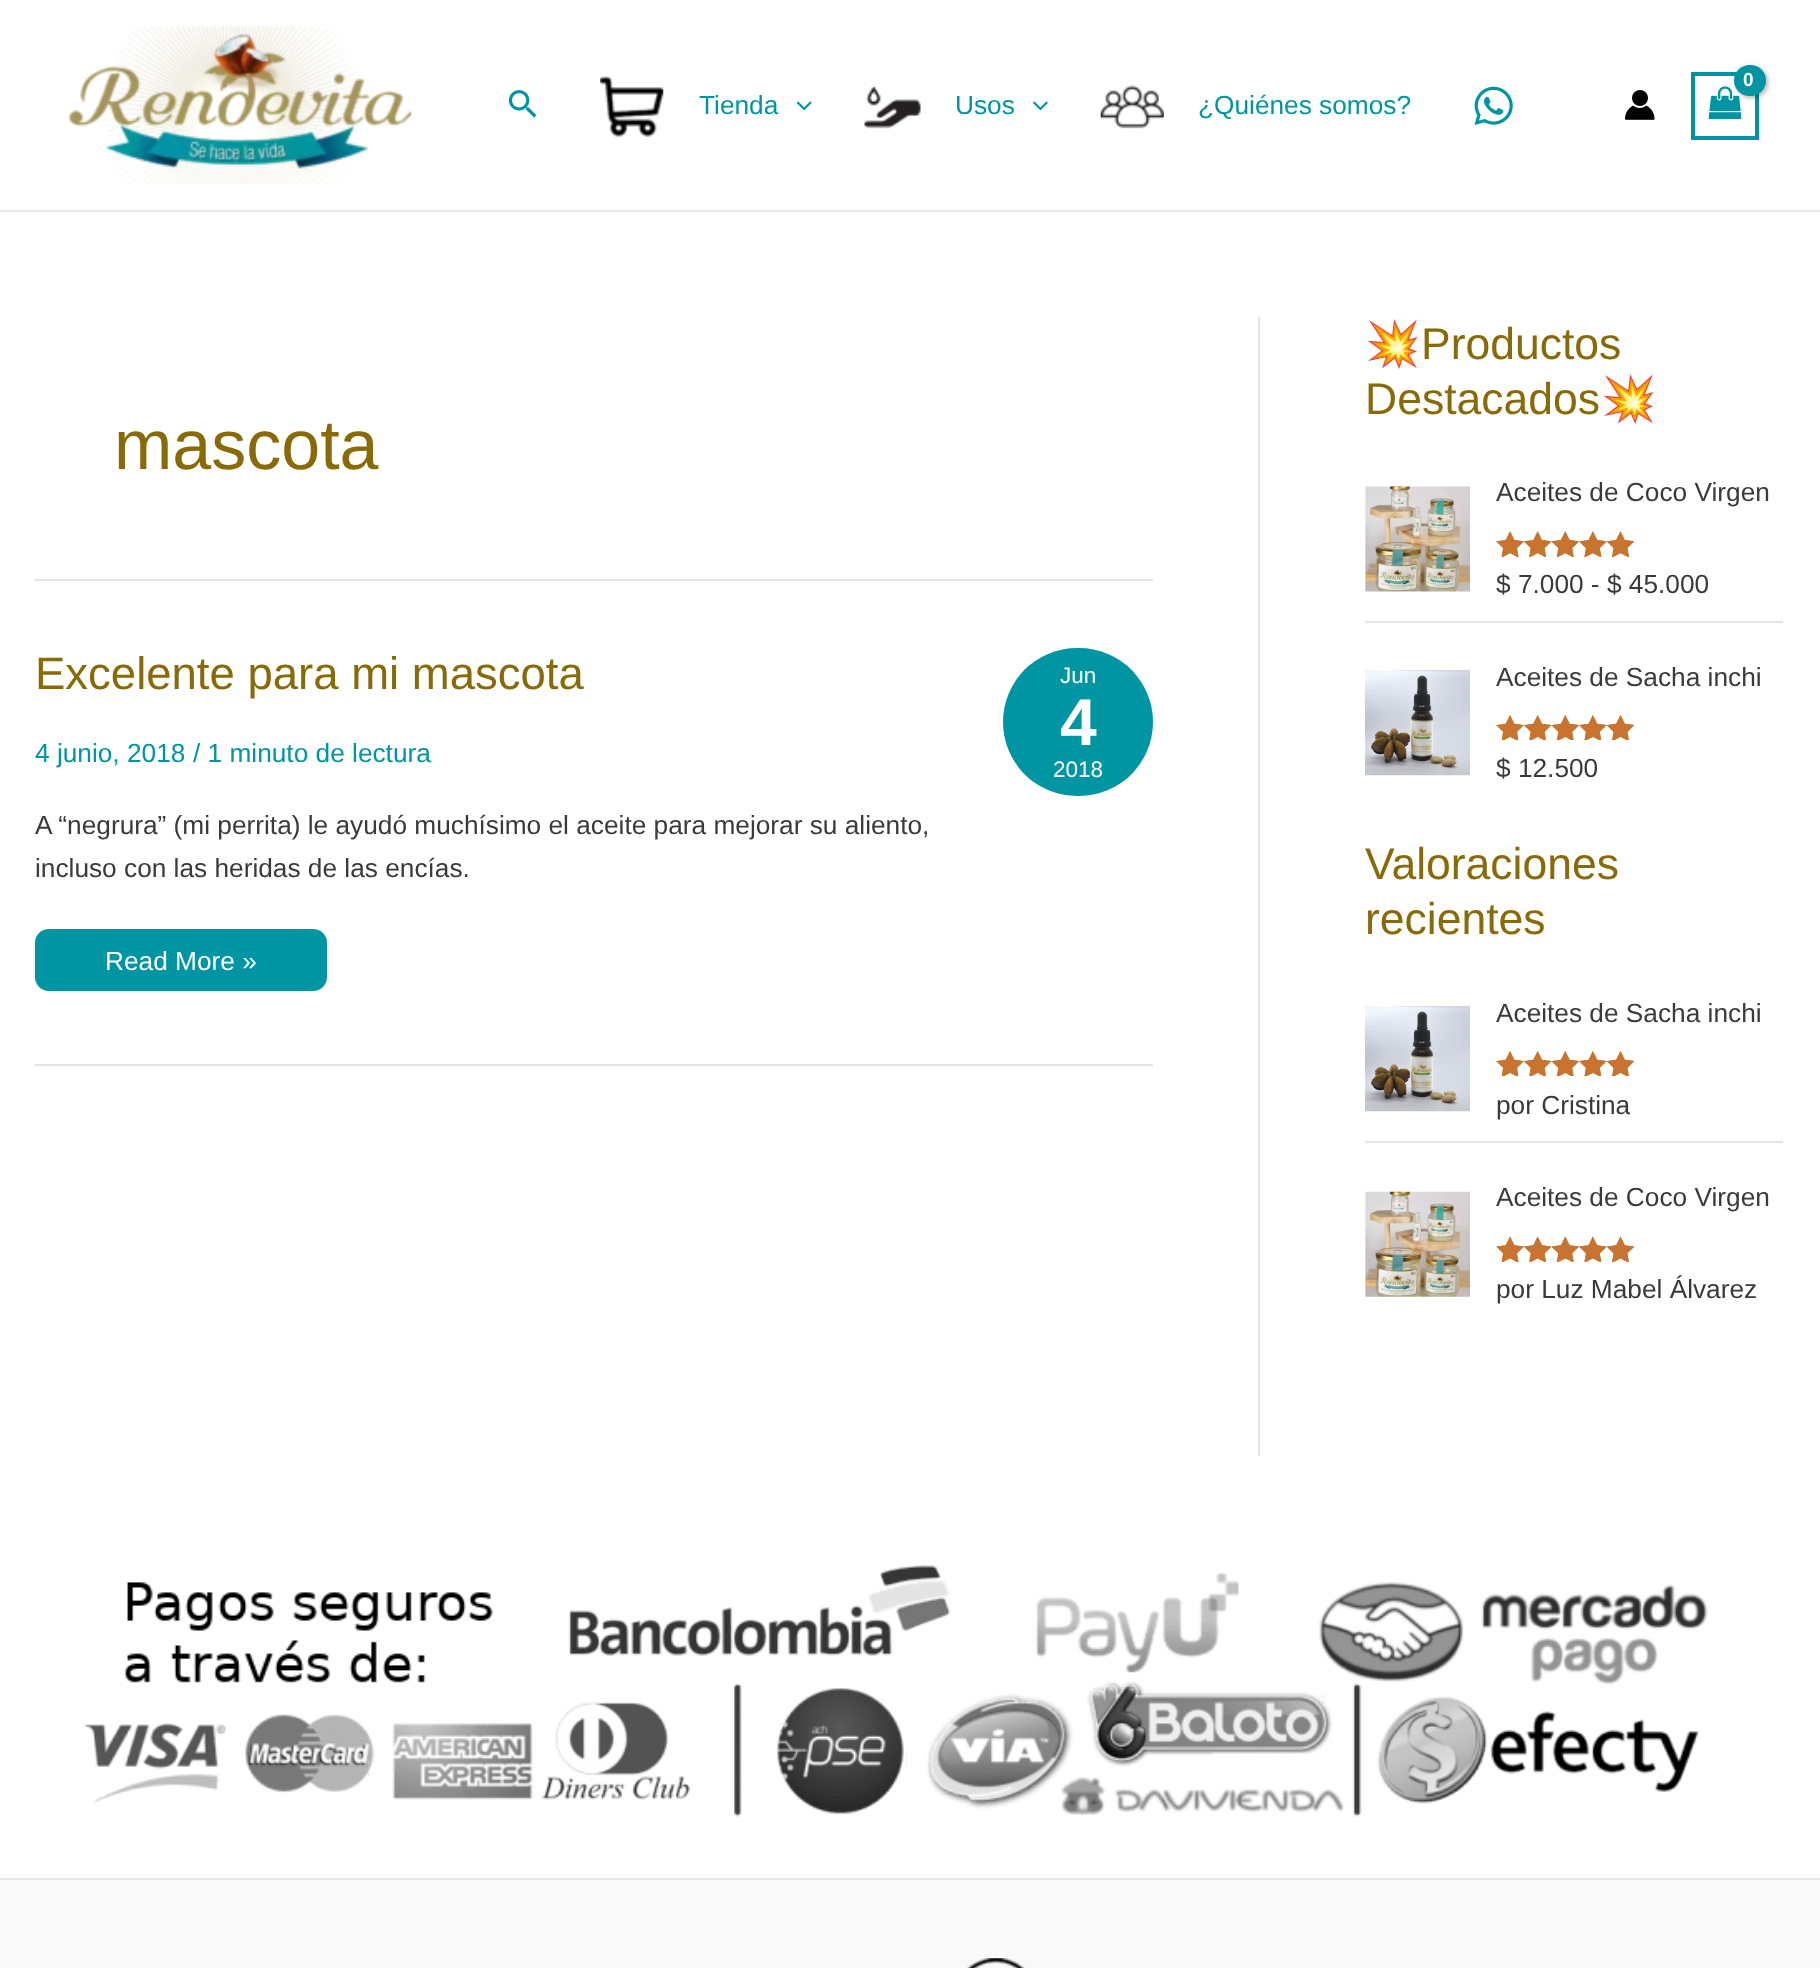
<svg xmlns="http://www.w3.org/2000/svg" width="1820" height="1968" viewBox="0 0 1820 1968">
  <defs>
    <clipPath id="clip1"><rect x="1003" y="648" width="150" height="148" rx="74"/></clipPath>
  </defs>
  <rect width="100%" height="100%" fill="#fff"/>
  <path d="M0 210h1820v2H0z" fill="#eaeaea"/>
  <image x="68" y="26" width="344" height="158" href="img/1.png"/>
  <path d="M1693 74h64v64H1693z" fill="none" stroke="#0095a2" stroke-width="4"/>
  <image x="1708" y="86" width="33" height="33" href="img/2.png"/>
  <rect x="1736" y="67" width="32" height="31" rx="15.5" fill="#0000004d" filter="blur(2.5px)"/>
  <rect x="1734" y="65" width="32" height="31" rx="15.5" fill="#0095a2"/>
  <image x="1474" y="86" width="39" height="39" href="img/3.png"/>
  <image x="1625" y="90" width="30" height="30" href="img/4.png"/>
  <image x="508" y="90" width="28" height="28" href="img/5.png"/>
  <image x="600" y="76" width="64" height="61" href="img/6.png"/>
  <image x="796" y="101" width="16" height="10" href="img/7.png"/>
  <image x="864" y="85" width="57" height="44" href="img/8.png"/>
  <image x="1033" y="101" width="15" height="10" href="img/9.png"/>
  <image x="1100" y="85" width="64" height="44" href="img/10.png"/>
  <path d="M35 579h1118v2H35z" fill="#e5e5e5"/>
  <path d="M35 1064h1118v2H35z" fill="#e5e5e5"/>
  <rect x="35" y="929" width="292" height="62" rx="14" fill="#0095a2"/>
  <rect x="1003" y="648" width="150" height="148" rx="74" fill="#0095a2"/>
  <g clip-path="url(#clip1)">
    <path d="M1022 665h112v23H1022z" fill="#0095a2"/>
    <path d="M1022 760h112v22H1022z" fill="#0095a2"/>
  </g>
  <path d="M1258 317h2v1139H1258z" fill="#e5e5e5"/>
  <path d="M1365 621h418v2H1365z" fill="#e5e5e5"/>
  <image x="1365" y="486" width="105" height="106" href="img/11.png"/>
  <image x="1496" y="531" width="139" height="26" href="img/12.png"/>
  <image x="1496" y="531" width="138" height="26" href="img/13.png"/>
  <image x="1365" y="670" width="105" height="106" href="img/14.png"/>
  <image x="1496" y="715" width="139" height="25" href="img/15.png"/>
  <image x="1496" y="715" width="138" height="25" href="img/16.png"/>
  <path d="M1365 1141h418v2H1365z" fill="#e5e5e5"/>
  <image x="1365" y="1006" width="105" height="106" href="img/14.png"/>
  <image x="1496" y="1051" width="139" height="25" href="img/15.png"/>
  <image x="1496" y="1051" width="138" height="25" href="img/16.png"/>
  <image x="1365" y="1191" width="105" height="106" href="img/17.png"/>
  <image x="1496" y="1236" width="139" height="26" href="img/18.png"/>
  <image x="1496" y="1236" width="138" height="26" href="img/19.png"/>
  <image x="84" y="1565" width="1624" height="252" href="img/20.png"/>
  <path d="M0 1880h1820v88H0z" fill="#f9f9f9"/>
  <path d="M0 1878h1820v2H0z" fill="#e6e6e6"/>
  <image x="967" y="1958" width="58" height="10" href="img/21.png"/>
  <text x="1743" y="86" font-family="Liberation Sans" font-size="19" font-weight="bold" letter-spacing="-1" fill="#fff">0</text>
  <g font-family="Liberation Sans" font-size="26.25" fill="#0095a2">
    <text x="699" y="114">Tienda</text>
    <text x="955" y="114">Usos</text>
    <text x="1198" y="114">¿Quiénes somos?</text>
  </g>
  <text x="114" y="469" font-family="Liberation Sans" font-size="70" fill="#886a08">mascota</text>
  <text x="35" y="689" font-family="Liberation Sans" font-size="45.5" fill="#886a08">Excelente para mi mascota</text>
  <g font-family="Liberation Sans" font-size="26.25" fill="#0095a2">
    <text x="35" y="762">4 junio, 2018</text>
    <text x="193" y="762">/ 1 minuto de lectura</text>
  </g>
  <g font-family="Liberation Sans" font-size="26.25" fill="#3a3a3a">
    <text x="35" y="834">A “negrura” (mi perrita) le ayudó muchísimo el aceite para mejorar su aliento,</text>
    <text x="35" y="877">incluso con las heridas de las encías.</text>
  </g>
  <text x="105" y="970" font-family="Liberation Sans" font-size="26.25" fill="#fff">Read More »</text>
  <text x="1060" y="683" font-family="Liberation Sans" font-size="22.5" fill="#fff">Jun</text>
  <text x="1060" y="745" font-family="Liberation Sans" font-size="66" font-weight="bold" fill="#fff">4</text>
  <text x="1053" y="777" font-family="Liberation Sans" font-size="22.5" fill="#fff">2018</text>
  <text x="1365" y="359" font-family="Noto Color Emoji" font-size="44.5" fill="#886a08">💥</text>
  <g font-family="Liberation Sans" font-size="44.5" fill="#886a08">
    <text x="1421" y="359">Productos</text>
    <text x="1365" y="414">Destacados</text>
  </g>
  <text x="1601" y="414" font-family="Noto Color Emoji" font-size="44.5" fill="#886a08">💥</text>
  <g font-family="Liberation Sans" font-size="26.25" fill="#3a3a3a">
    <text x="1496" y="501">Aceites de Coco Virgen</text>
    <text x="1496" y="593">$ 7.000 - $ 45.000</text>
    <text x="1496" y="686">Aceites de Sacha inchi</text>
    <text x="1496" y="777">$ 12.500</text>
  </g>
  <g font-family="Liberation Sans" font-size="44.5" fill="#886a08">
    <text x="1365" y="879">Valoraciones</text>
    <text x="1365" y="934">recientes</text>
  </g>
  <g font-family="Liberation Sans" font-size="26.25" fill="#3a3a3a">
    <text x="1496" y="1022">Aceites de Sacha inchi</text>
    <text x="1496" y="1114">por Cristina</text>
    <text x="1496" y="1206">Aceites de Coco Virgen</text>
    <text x="1496" y="1298">por Luz Mabel Álvarez</text>
  </g>
</svg>
